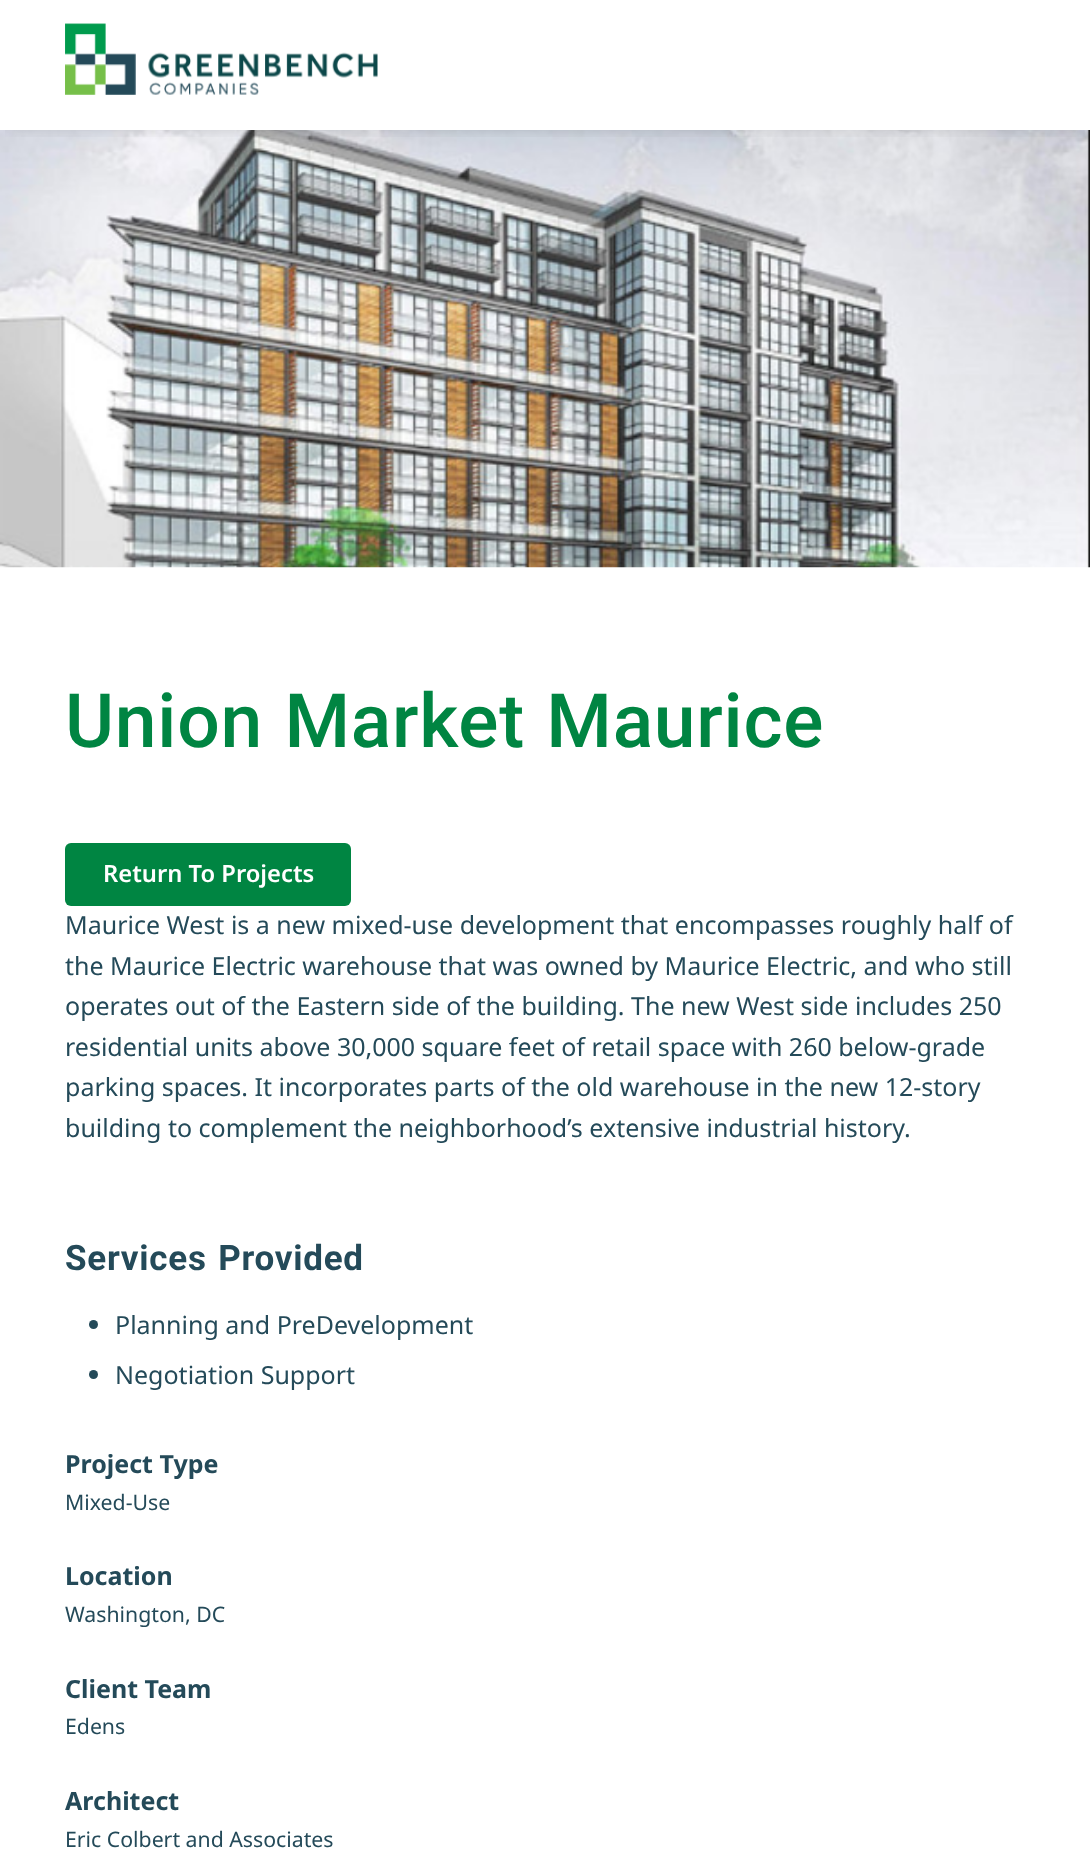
<svg xmlns="http://www.w3.org/2000/svg" width="1090" height="1867" viewBox="0 0 1090 1867">
  <defs>
    <clipPath id="clip1"><path d="M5 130h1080v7H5z"/></clipPath>
  </defs>
  <rect width="100%" height="100%" fill="#fff"/>
  <image x="0" y="130" width="1090" height="438" href="img/2.png"/>
  <g clip-path="url(#clip1)">
    <path d="M9 9h1072v112H9z" fill="#0000004d" filter="blur(10.5px)"/>
  </g>
  <image x="65" y="23" width="313" height="72" href="img/1.png"/>
  <rect x="65" y="843" width="286" height="63" rx="6" fill="#008542"/>
  <circle cx="93.5" cy="1324.5" r="4.5" fill="#244a59"/>
  <circle cx="93.5" cy="1374.5" r="4.5" fill="#244a59"/>
  <text x="65" y="747" word-spacing="2" font-family="Roboto" font-size="75" font-weight="500" letter-spacing="0.75" fill="#008542">Union Market Maurice</text>
  <text x="103" y="882" font-family="Noto Sans" font-size="23.75" font-weight="600" fill="#fff">Return To Projects</text>
  <text x="65" y="1473" font-family="Noto Sans" font-size="25" font-weight="bold" fill="#244a59">Project Type</text>
  <text x="65" y="1510" font-family="Noto Sans" font-size="21.25" fill="#244a59">Mixed-Use</text>
  <text x="65" y="1585" font-family="Noto Sans" font-size="25" font-weight="bold" fill="#244a59">Location</text>
  <text x="65" y="1622" font-family="Noto Sans" font-size="21.25" fill="#244a59">Washington, DC</text>
  <text x="65" y="1698" font-family="Noto Sans" font-size="25" font-weight="bold" fill="#244a59">Client Team</text>
  <text x="65" y="1734" font-family="Noto Sans" font-size="21.25" fill="#244a59">Edens</text>
  <text x="65" y="1810" font-family="Noto Sans" font-size="25" font-weight="bold" fill="#244a59">Architect</text>
  <text x="65" y="1847" font-family="Noto Sans" font-size="21.25" fill="#244a59">Eric Colbert and Associates</text>
  <g font-family="Noto Sans" font-size="25" fill="#244a59">
    <text x="65" y="934">Maurice West is a new mixed-use development that encompasses roughly half of</text>
    <text x="65" y="975">the Maurice Electric warehouse that was owned by Maurice Electric, and who still</text>
    <text x="65" y="1015">operates out of the Eastern side of the building. The new West side includes 250</text>
    <text x="65" y="1056">residential units above 30,000 square feet of retail space with 260 below-grade</text>
    <text x="65" y="1096">parking spaces. It incorporates parts of the old warehouse in the new 12-story</text>
    <text x="65" y="1137">building to complement the neighborhood’s extensive industrial history.</text>
  </g>
  <text x="65" y="1270" word-spacing="2" font-family="Roboto" font-size="35" font-weight="bold" letter-spacing="0.75" fill="#244a59">Services Provided</text>
  <g font-family="Noto Sans" font-size="25" fill="#244a59">
    <text x="115" y="1334">Planning and PreDevelopment</text>
    <text x="115" y="1384">Negotiation Support</text>
  </g>
</svg>
